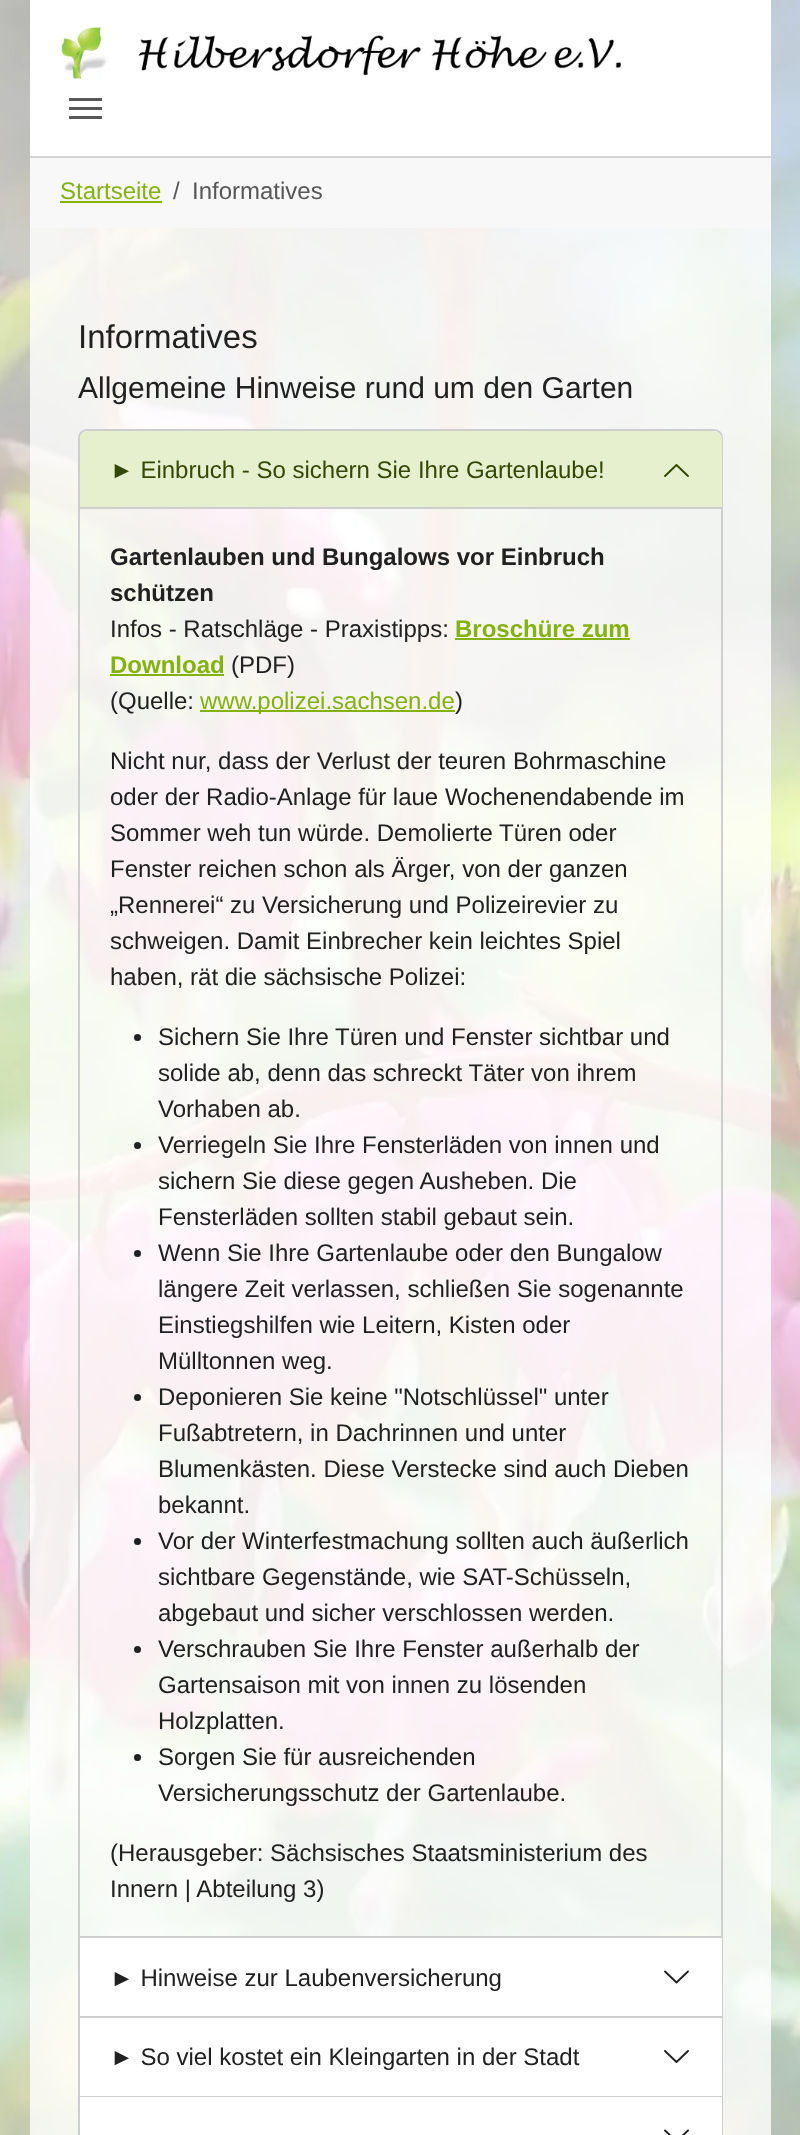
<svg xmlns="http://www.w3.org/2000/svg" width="800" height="2135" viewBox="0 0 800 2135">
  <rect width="100%" height="100%" fill="#fff"/>
  <image x="0" y="0" width="800" height="2135" href="img/1.png"/>
  <path d="M30 156h741v2H30z" fill="#d3d3d3"/>
  <path d="M30 0h741v156H30z" fill="#fff"/>
  <image x="60" y="26" width="561" height="54" href="img/2.png"/>
  <path d="M69 107h33v3H69z" fill="#595959"/>
  <path d="M69 98h33v3H69z" fill="#595959"/>
  <path d="M69 116h33v3H69z" fill="#595959"/>
  <path d="M30 158h741v70H30z" fill="#f8f8f8"/>
  <path d="M60 201h102v2H60z" fill="#84b211"/>
  <path d="M30 228h741v1907H30z" fill="#ffffffcc"/>
  <path d="M87 430H714C718.5 430 722 433.5 722 438V1937H79V438C79 433.5 82.5 430 87 430Z" fill="none" stroke="#cecece" stroke-width="2"/>
  <path d="M88 431H714C718.5 431 722 434.5 722 439V509H80V439C80 434.5 83.5 431 88 431Z" fill="#e6f0cf"/>
  <path d="M80 507h642v2H80z" fill="#cecece"/>
  <path d="M688 476L676.5 465L665 476" fill="none" stroke="#354707" stroke-width="1.9" stroke-linecap="round" stroke-linejoin="round"/>
  <path d="M455 638h175v2H455z" fill="#84b211"/>
  <path d="M110 674h114v2H110z" fill="#84b211"/>
  <path d="M200 710h255v2H200z" fill="#84b211"/>
  <circle cx="137.5" cy="1037.5" r="3.5" fill="#212121"/>
  <circle cx="137.5" cy="1145.5" r="3.5" fill="#212121"/>
  <circle cx="137.5" cy="1253.5" r="3.5" fill="#212121"/>
  <circle cx="137.5" cy="1397.5" r="3.5" fill="#212121"/>
  <circle cx="137.5" cy="1541.5" r="3.5" fill="#212121"/>
  <circle cx="137.5" cy="1649.5" r="3.5" fill="#212121"/>
  <circle cx="137.5" cy="1757.5" r="3.5" fill="#212121"/>
  <path d="M722 1938h1v159H722z" fill="#cecece"/>
  <path d="M78 2016h645v2H78z" fill="#cecece"/>
  <path d="M78 1938h2v80H78z" fill="#cecece"/>
  <path d="M80 1938h642v78H80z" fill="#fff"/>
  <path d="M665 1971.5L676.5 1982.5L688 1971.5" fill="none" stroke="#212121" stroke-width="1.9" stroke-linecap="round" stroke-linejoin="round"/>
  <path d="M78 2096h645v1H78z" fill="#cecece"/>
  <path d="M78 2018h2v79H78z" fill="#cecece"/>
  <path d="M80 2018h642v78H80z" fill="#fff"/>
  <path d="M665 2051L676.5 2062L688 2051" fill="none" stroke="#212121" stroke-width="1.9" stroke-linecap="round" stroke-linejoin="round"/>
  <path d="M78 2097H723V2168C723 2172 719 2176 714 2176H87C82 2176 78 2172 78 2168ZM80 2097H722V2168C722 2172 718 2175 714 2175H87C83 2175 80 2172 80 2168Z" fill="#cecece" fill-rule="evenodd"/>
  <path d="M80 2097h642v38H80z" fill="#fff"/>
  <path d="M665 2130.5L676.5 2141.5L688 2130.5" fill="none" stroke="#212121" stroke-width="1.9" stroke-linecap="round" stroke-linejoin="round"/>
  <text x="60" y="199" font-family="Liberation Sans" font-size="24" fill="#84b211">Startseite</text>
  <g font-family="Liberation Sans" font-size="24" fill="#575757">
    <text x="173" y="199">/</text>
    <text x="192" y="199">Informatives</text>
  </g>
  <text x="78" y="348" font-family="Liberation Sans" font-size="33" fill="#212121">Informatives</text>
  <text x="78" y="398" font-family="Liberation Sans" font-size="30" fill="#212121">Allgemeine Hinweise rund um den Garten</text>
  <text x="110" y="478" font-family="Liberation Sans" font-size="24" fill="#354707">► Einbruch - So sichern Sie Ihre Gartenlaube!</text>
  <g font-family="Liberation Sans" font-size="24" font-weight="bold" fill="#212121">
    <text x="110" y="565">Gartenlauben und Bungalows vor Einbruch</text>
    <text x="110" y="601">schützen</text>
  </g>
  <text x="110" y="637" font-family="Liberation Sans" font-size="24" fill="#212121">Infos - Ratschläge - Praxistipps:</text>
  <g font-family="Liberation Sans" font-size="24" font-weight="bold" fill="#84b211">
    <text x="455" y="637">Broschüre zum</text>
    <text x="110" y="673">Download</text>
  </g>
  <g font-family="Liberation Sans" font-size="24" fill="#212121">
    <text x="231" y="673">(PDF)</text>
    <text x="110" y="709">(Quelle:</text>
  </g>
  <text x="200" y="709" font-family="Liberation Sans" font-size="24" fill="#84b211">www.polizei.sachsen.de</text>
  <g font-family="Liberation Sans" font-size="24" fill="#212121">
    <text x="455" y="709">)</text>
    <text x="110" y="769">Nicht nur, dass der Verlust der teuren Bohrmaschine</text>
    <text x="110" y="805">oder der Radio-Anlage für laue Wochenendabende im</text>
    <text x="110" y="841">Sommer weh tun würde. Demolierte Türen oder</text>
    <text x="110" y="877">Fenster reichen schon als Ärger, von der ganzen</text>
    <text x="110" y="913">„Rennerei“ zu Versicherung und Polizeirevier zu</text>
    <text x="110" y="949">schweigen. Damit Einbrecher kein leichtes Spiel</text>
    <text x="110" y="985">haben, rät die sächsische Polizei:</text>
    <text x="158" y="1045">Sichern Sie Ihre Türen und Fenster sichtbar und</text>
    <text x="158" y="1081">solide ab, denn das schreckt Täter von ihrem</text>
    <text x="158" y="1117">Vorhaben ab.</text>
    <text x="158" y="1153">Verriegeln Sie Ihre Fensterläden von innen und</text>
    <text x="158" y="1189">sichern Sie diese gegen Ausheben. Die</text>
    <text x="158" y="1225">Fensterläden sollten stabil gebaut sein.</text>
    <text x="158" y="1261">Wenn Sie Ihre Gartenlaube oder den Bungalow</text>
    <text x="158" y="1297">längere Zeit verlassen, schließen Sie sogenannte</text>
    <text x="158" y="1333">Einstiegshilfen wie Leitern, Kisten oder</text>
    <text x="158" y="1369">Mülltonnen weg.</text>
    <text x="158" y="1405">Deponieren Sie keine "Notschlüssel" unter</text>
    <text x="158" y="1441">Fußabtretern, in Dachrinnen und unter</text>
    <text x="158" y="1477">Blumenkästen. Diese Verstecke sind auch Dieben</text>
    <text x="158" y="1513">bekannt.</text>
    <text x="158" y="1549">Vor der Winterfestmachung sollten auch äußerlich</text>
    <text x="158" y="1585">sichtbare Gegenstände, wie SAT-Schüsseln,</text>
    <text x="158" y="1621">abgebaut und sicher verschlossen werden.</text>
    <text x="158" y="1657">Verschrauben Sie Ihre Fenster außerhalb der</text>
    <text x="158" y="1693">Gartensaison mit von innen zu lösenden</text>
    <text x="158" y="1729">Holzplatten.</text>
    <text x="158" y="1765">Sorgen Sie für ausreichenden</text>
    <text x="158" y="1801">Versicherungsschutz der Gartenlaube.</text>
    <text x="110" y="1861">(Herausgeber: Sächsisches Staatsministerium des</text>
    <text x="110" y="1897">Innern | Abteilung 3)</text>
    <text x="110" y="1986">► Hinweise zur Laubenversicherung</text>
    <text x="110" y="2065">► So viel kostet ein Kleingarten in der Stadt</text>
  </g>
</svg>
